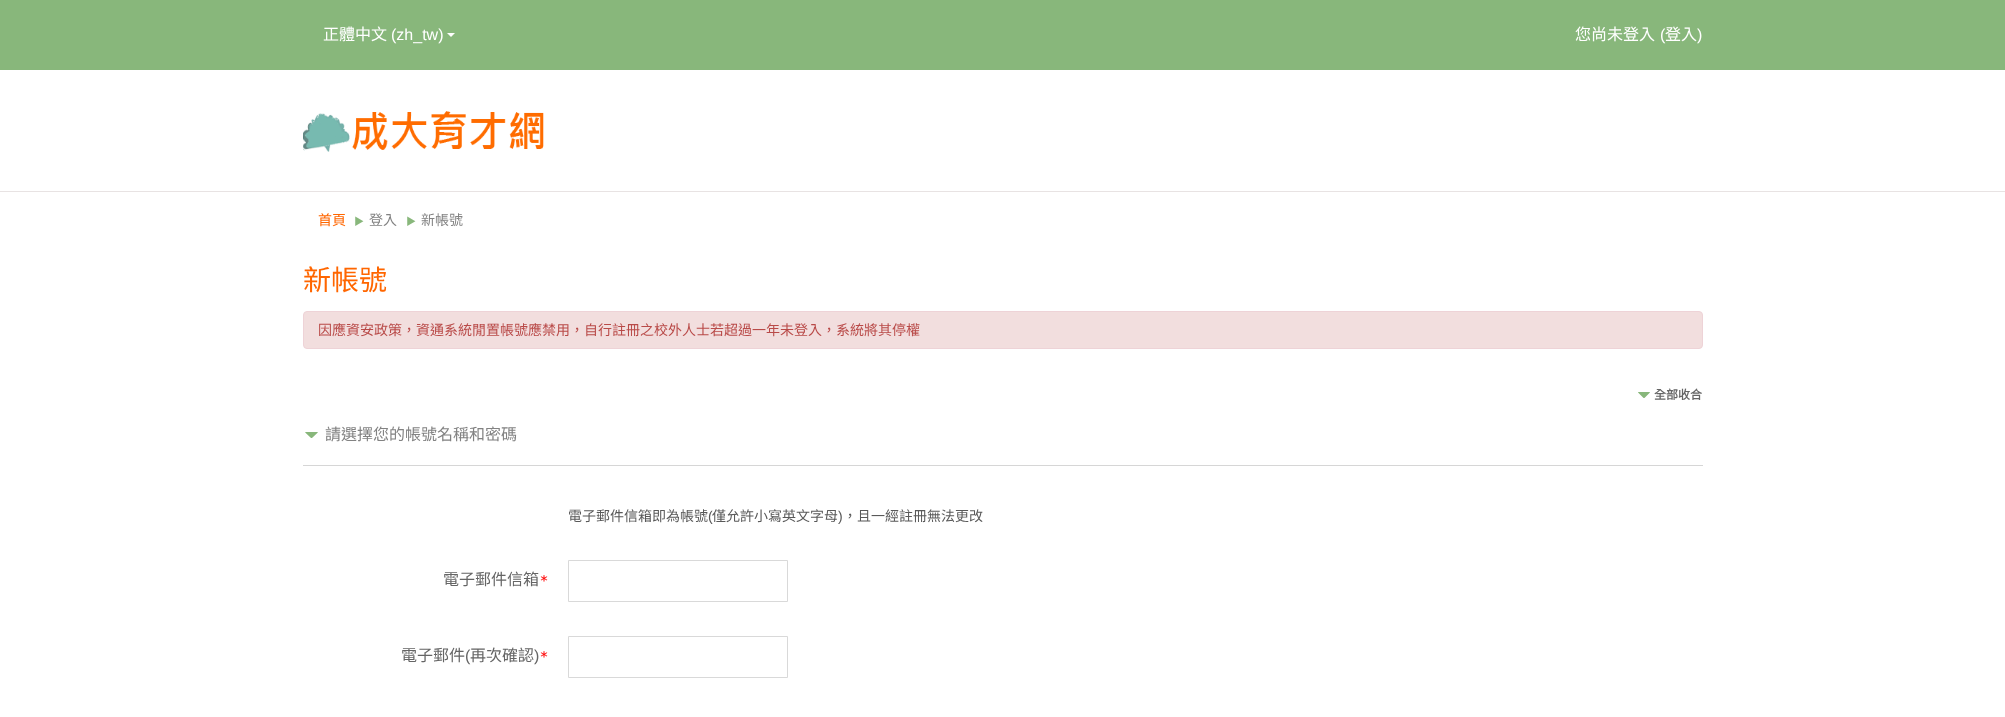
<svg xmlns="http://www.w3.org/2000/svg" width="2005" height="717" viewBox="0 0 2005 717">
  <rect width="100%" height="100%" fill="#fff"/>
  <path d="M0 191h2005v1H0z" fill="#e8e3e3"/>
  <path d="M0 0h2005v70H0z" fill="#88b77b"/>
  <path d="M447 33H455L451 37Z" fill="#fff"/>
  <image x="303" y="111" width="241" height="41" href="img/1.png"/>
  <rect x="303.5" y="311.5" width="1399" height="37" rx="3.5" fill="#f2dede" stroke="#eed3d7"/>
  <image x="1638" y="392" width="12" height="6" href="img/2.png"/>
  <path d="M303 465h1400v1H303z" fill="#d6d6d6"/>
  <image x="305" y="432" width="13" height="6" href="img/3.png"/>
  <image x="540" y="575" width="8" height="7" href="img/4.png"/>
  <path d="M568.5 560.5h219v41H568.5z" fill="none" stroke="#d9d9d9"/>
  <image x="540" y="651" width="8" height="7" href="img/4.png"/>
  <path d="M568.5 636.5h219v41H568.5z" fill="none" stroke="#d9d9d9"/>
  <text x="323" y="40" font-family="Noto Sans CJK TC" font-size="16" fill="#fff">正體中文</text>
  <text x="391" y="40" font-family="Liberation Sans" font-size="16" fill="#fff">(zh_tw)</text>
  <text x="1575" y="40" font-family="Noto Sans CJK TC" font-size="16" fill="#fff">您尚未登入</text>
  <text x="1660" y="40" font-family="Liberation Sans" font-size="16" fill="#fff">(</text>
  <text x="1665" y="40" font-family="Noto Sans CJK TC" font-size="16" fill="#fff">登入</text>
  <text x="1697" y="40" font-family="Liberation Sans" font-size="16" fill="#fff">)</text>
  <text x="318" y="225" font-family="Noto Sans CJK TC" font-size="14" fill="#f60">首頁</text>
  <text x="354" y="225" font-family="Noto Sans CJK TC" font-size="10" fill="#88b77b">▶︎</text>
  <text x="369" y="225" font-family="Noto Sans CJK TC" font-size="14" fill="#828282">登入</text>
  <text x="406" y="225" font-family="Noto Sans CJK TC" font-size="10" fill="#88b77b">▶︎</text>
  <text x="421" y="225" font-family="Noto Sans CJK TC" font-size="14" fill="#828282">新帳號</text>
  <text x="303" y="290" font-family="Noto Sans CJK TC" font-size="28" fill="#f60">新帳號</text>
  <text x="318" y="335" font-family="Noto Sans CJK TC" font-size="14" fill="#b94a48">因應資安政策，資通系統閒置帳號應禁用，自行註冊之校外人士若超過一年未登入，系統將其停權</text>
  <text x="1654" y="399" font-family="Noto Sans CJK TC" font-size="12" font-weight="bold" fill="#656565">全部收合</text>
  <text x="325" y="440" font-family="Noto Sans CJK TC" font-size="16" fill="#828282">請選擇您的帳號名稱和密碼</text>
  <text x="568" y="521" font-family="Noto Sans CJK TC" font-size="14" fill="#595959">電子郵件信箱即為帳號</text>
  <text x="708" y="521" font-family="Liberation Sans" font-size="14" fill="#595959">(</text>
  <text x="712" y="521" font-family="Noto Sans CJK TC" font-size="14" fill="#595959">僅允許小寫英文字母</text>
  <text x="838" y="521" font-family="Liberation Sans" font-size="14" fill="#595959">)</text>
  <text x="843" y="521" font-family="Noto Sans CJK TC" font-size="14" fill="#595959">，且一經註冊無法更改</text>
  <g font-family="Noto Sans CJK TC" font-size="16" fill="#656565">
    <text x="443" y="585">電子郵件信箱</text>
    <text x="401" y="661">電子郵件</text>
  </g>
  <text x="465" y="661" font-family="Liberation Sans" font-size="16" fill="#656565">(</text>
  <text x="470" y="661" font-family="Noto Sans CJK TC" font-size="16" fill="#656565">再次確認</text>
  <text x="534" y="661" font-family="Liberation Sans" font-size="16" fill="#656565">)</text>
</svg>
